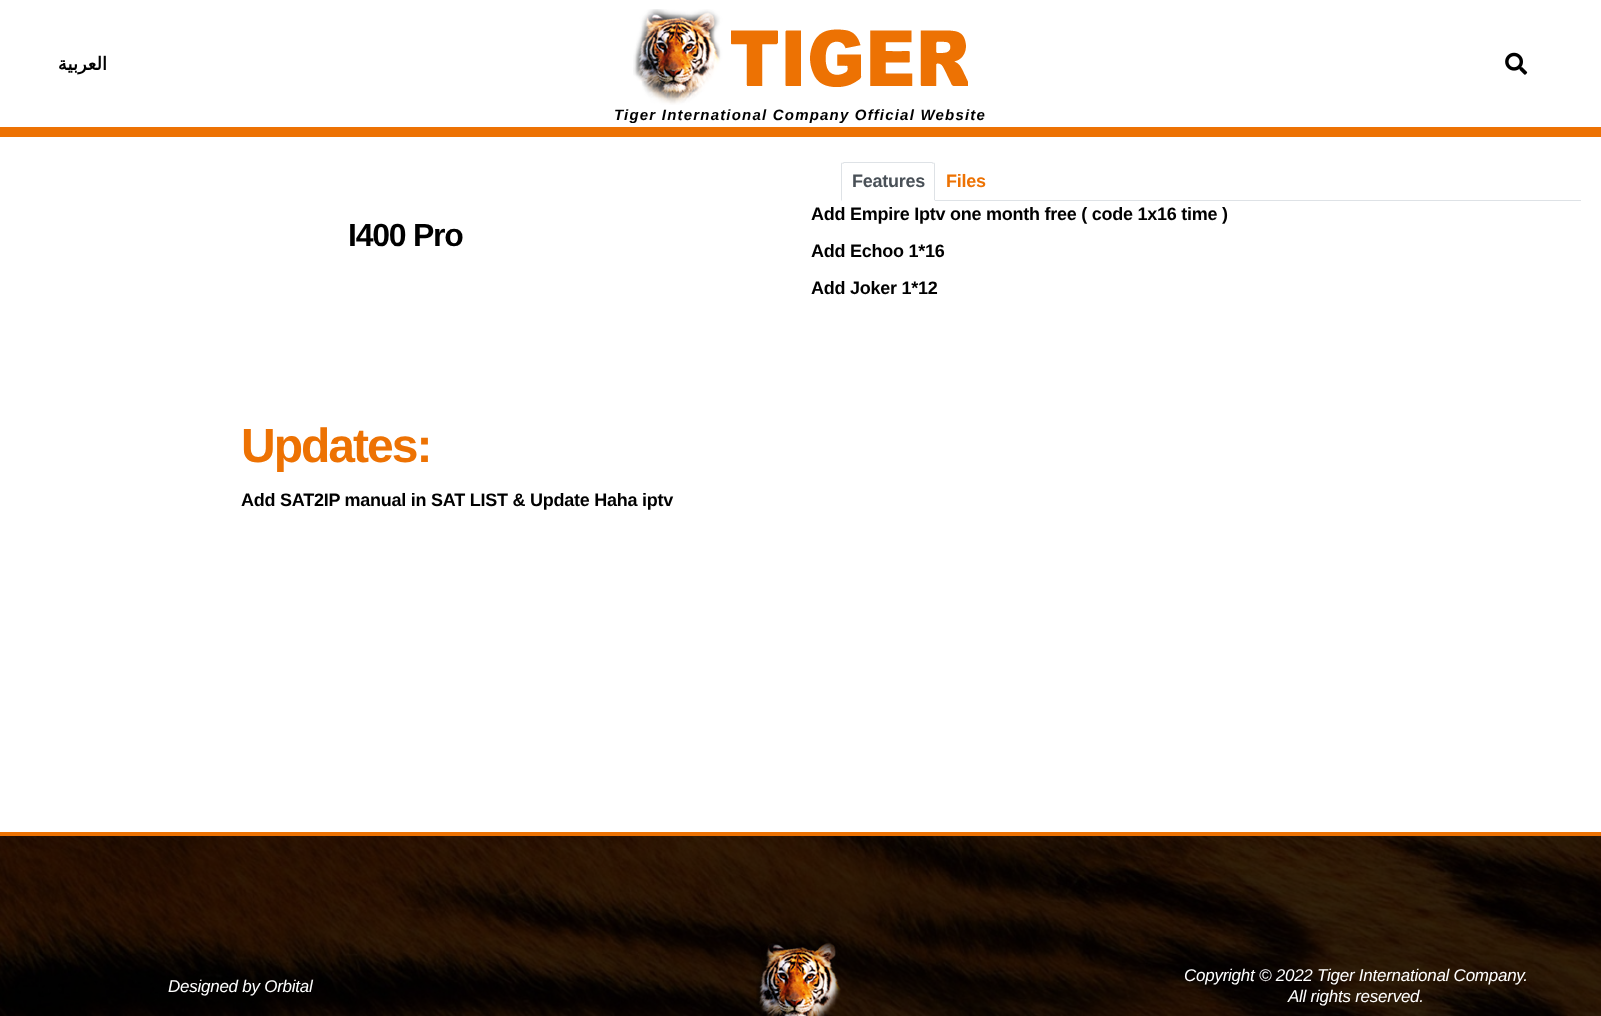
<svg xmlns="http://www.w3.org/2000/svg" width="1601" height="1016" viewBox="0 0 1601 1016">
  <rect width="100%" height="100%" fill="#fff"/>
  <path d="M0 127h1601v10H0z" fill="#ed7203"/>
  <image x="1505" y="52" width="23" height="23" href="img/1.png"/>
  <image x="633" y="9" width="335" height="96" href="img/2.png"/>
  <path d="M935 200h646v1H935z" fill="#dee2e6"/>
  <path d="M844 162L842 163L843 164L844 163H932L933 164L934 163L932 162Z" fill="#dee2e6"/>
  <path d="M935 201V164L934.5 162.5L933.5 163.5L934 164V200Z" fill="#dee2e6"/>
  <path d="M935 201L934 200H842L841 201Z" fill="#fff"/>
  <path d="M841 201L842 200V164L842.5 163.5L841.5 162.5L841 164Z" fill="#dee2e6"/>
  <image x="0" y="836" width="1601" height="180" href="img/3.png"/>
  <path d="M0 832h1601v4H0z" fill="#ed7203"/>
  <image x="756" y="942" width="85" height="74" href="img/4.png"/>
  <text x="107" y="70" font-family="DejaVu Sans" font-size="18" font-weight="bold" letter-spacing="-0.25" direction="rtl" fill="#000">العربية</text>
  <text x="614" y="120" font-family="Liberation Sans" font-size="15" font-weight="bold" font-style="italic" letter-spacing="1.2" fill="#000">Tiger International Company Official Website</text>
  <text x="348" y="246" font-family="Liberation Sans" font-size="32" font-weight="bold" letter-spacing="-1.25" fill="#000">I400 Pro</text>
  <text x="852" y="187" font-family="Liberation Sans" font-size="18" font-weight="bold" letter-spacing="-0.25" fill="#495057">Features</text>
  <text x="946" y="187" font-family="Liberation Sans" font-size="18" font-weight="bold" letter-spacing="-0.25" fill="#ed7203">Files</text>
  <g font-family="Liberation Sans" font-size="18" font-weight="bold" letter-spacing="-0.25" fill="#000">
    <text x="811" y="220">Add Empire Iptv one month free ( code 1x16 time )</text>
    <text x="811" y="257">Add Echoo 1*16</text>
    <text x="811" y="294">Add Joker 1*12</text>
  </g>
  <text x="241" y="462" font-family="Liberation Sans" font-size="48" font-weight="bold" letter-spacing="-2" fill="#ed7203">Updates:</text>
  <text x="241" y="506" font-family="Liberation Sans" font-size="18" font-weight="bold" letter-spacing="-0.25" fill="#000">Add SAT2IP manual in SAT LIST &amp; Update Haha iptv</text>
  <g font-family="Liberation Sans" font-size="17" font-style="italic" letter-spacing="-0.25" fill="#fff">
    <text x="168" y="992">Designed by Orbital</text>
    <text x="1184" y="981">Copyright © 2022 Tiger International Company.</text>
    <text x="1288" y="1002">All rights reserved.</text>
  </g>
</svg>
